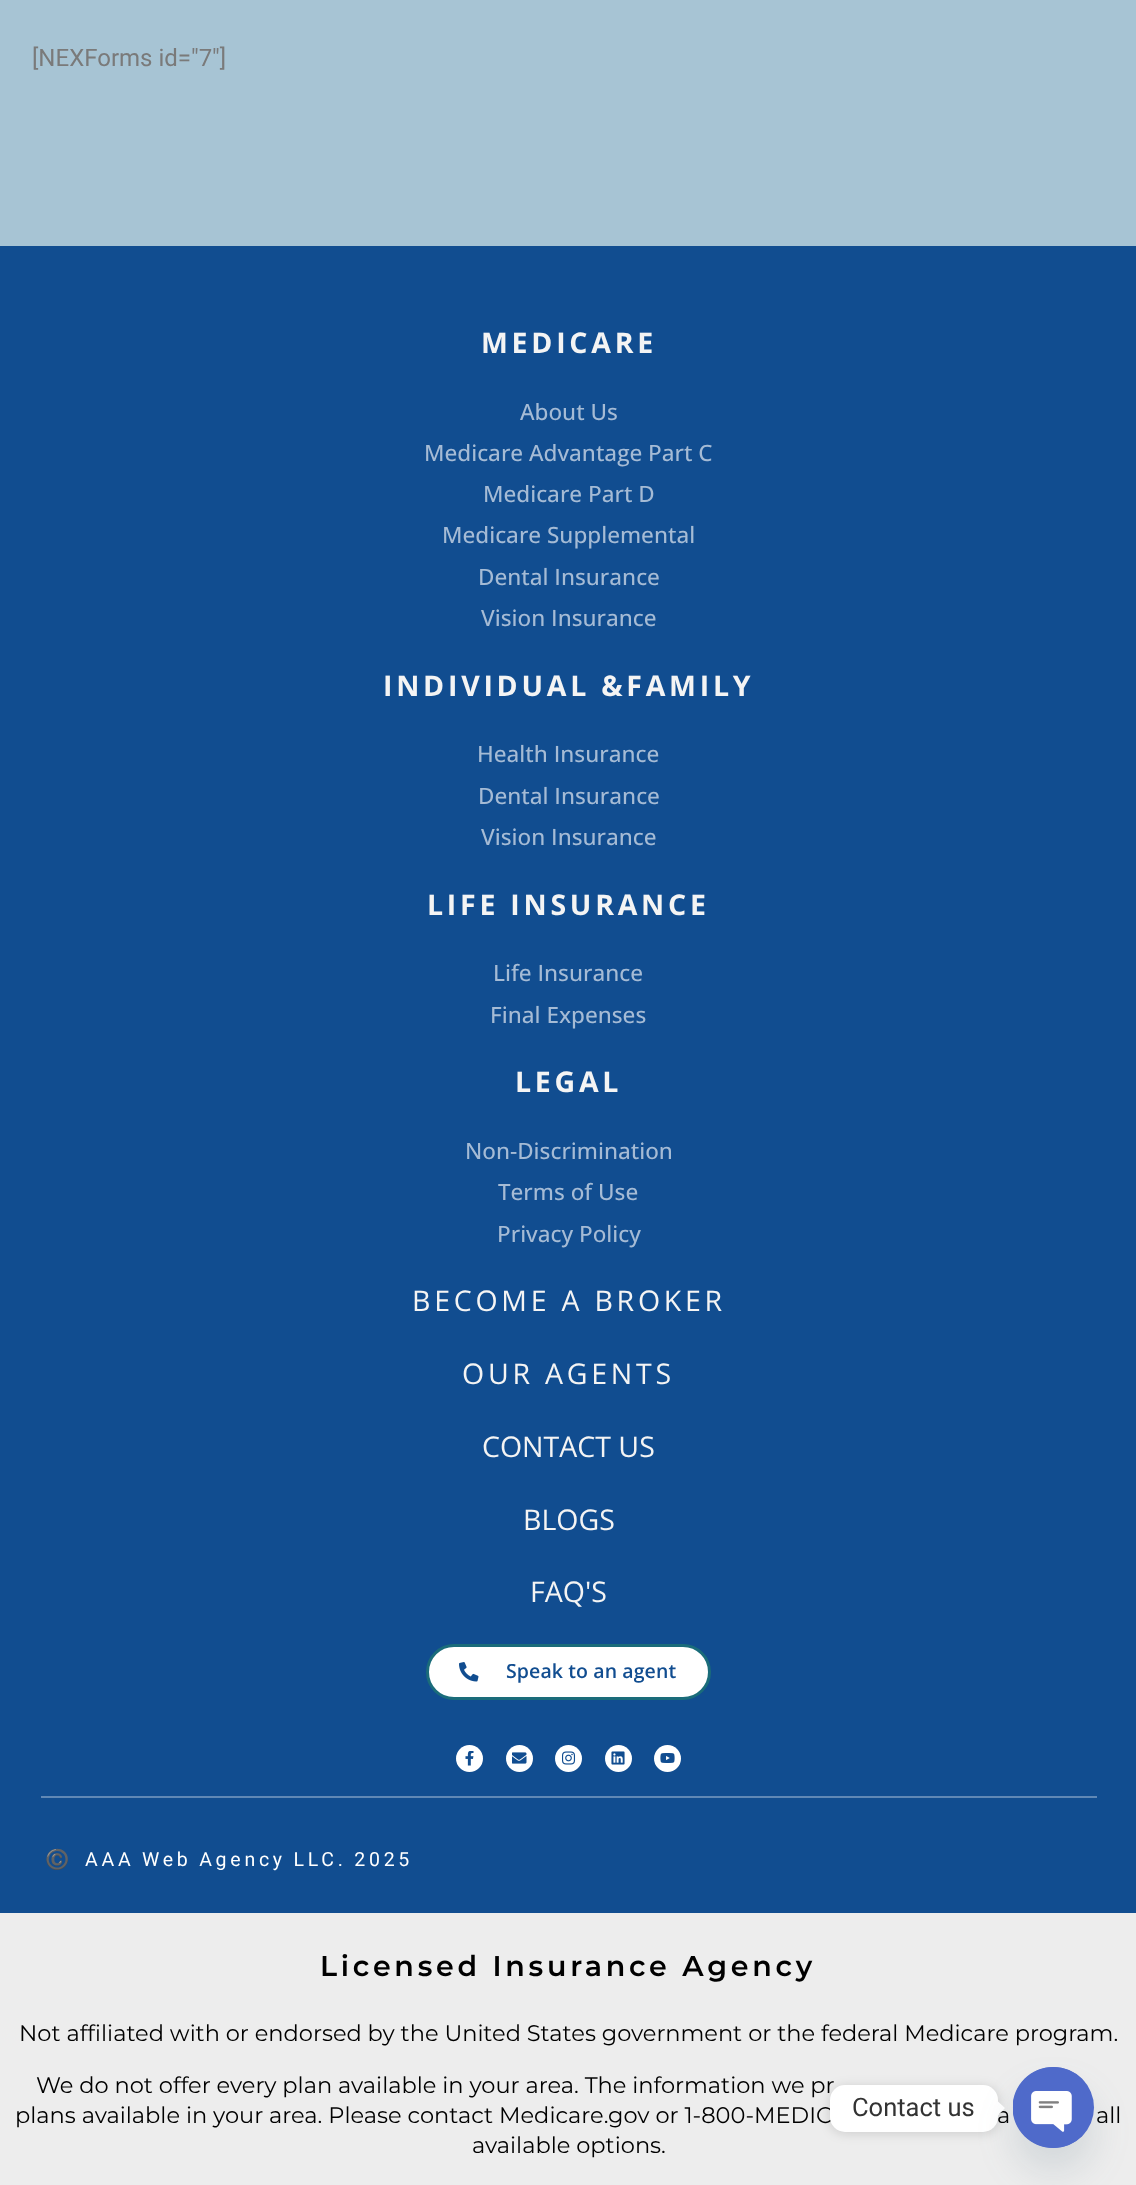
<svg xmlns="http://www.w3.org/2000/svg" width="1136" height="2185" viewBox="0 0 1136 2185">
  <rect width="100%" height="100%" fill="#a7c4d4"/>
  <path d="M0 246h1136v1667H0z" fill="#114d90"/>
  <rect x="427.5" y="1645.5" width="282" height="53" rx="26.5" fill="#fff" stroke="#1a6c7a" stroke-width="3"/>
  <image x="459" y="1662" width="20" height="20" href="img/1.png"/>
  <circle cx="469.5" cy="1758.5" r="13.5" fill="#fff"/>
  <image x="465" y="1751" width="9" height="15" href="img/2.png"/>
  <circle cx="519.5" cy="1758.5" r="13.5" fill="#fff"/>
  <image x="512" y="1752" width="15" height="12" href="img/3.png"/>
  <circle cx="568.5" cy="1758.5" r="13.5" fill="#fff"/>
  <image x="562" y="1751" width="14" height="14" href="img/4.png"/>
  <circle cx="618.5" cy="1758.5" r="13.5" fill="#fff"/>
  <image x="611" y="1751" width="14" height="14" href="img/5.png"/>
  <circle cx="667.5" cy="1758.5" r="13.5" fill="#fff"/>
  <image x="660" y="1753" width="15" height="10" href="img/6.png"/>
  <path d="M41 1796h1056v2H41z" fill="#6088b5"/>
  <path d="M0 1913h1136v272H0z" fill="#ededed"/>
  <rect x="830" y="2087" width="168" height="46" rx="15" fill="#00000026" filter="blur(6px)"/>
  <text x="32" y="66" font-family="Roboto" font-size="24" fill="#7a7a7a">[NEXForms id="7"]</text>
  <text x="481" y="353" font-family="Open Sans" font-size="28.5" font-weight="bold" letter-spacing="3.75" fill="#f4f4f4">MEDICARE</text>
  <g font-family="Open Sans" font-size="22.5" font-weight="500" fill="#a5bbd5">
    <text x="520" y="420">About Us</text>
    <text x="424" y="461">Medicare Advantage Part C</text>
    <text x="483" y="502">Medicare Part D</text>
    <text x="442" y="543">Medicare Supplemental</text>
    <text x="478" y="585">Dental Insurance</text>
    <text x="481" y="626">Vision Insurance</text>
  </g>
  <text x="383" y="696" font-family="Open Sans" font-size="28.5" font-weight="bold" letter-spacing="3.75" fill="#f4f4f4">INDIVIDUAL &amp;FAMILY</text>
  <g font-family="Open Sans" font-size="22.5" font-weight="500" fill="#a5bbd5">
    <text x="477" y="762">Health Insurance</text>
    <text x="478" y="804">Dental Insurance</text>
    <text x="481" y="845">Vision Insurance</text>
  </g>
  <text x="427" y="915" font-family="Open Sans" font-size="28.5" font-weight="bold" letter-spacing="3.75" fill="#f4f4f4">LIFE INSURANCE</text>
  <g font-family="Open Sans" font-size="22.5" font-weight="500" fill="#a5bbd5">
    <text x="493" y="981">Life Insurance</text>
    <text x="490" y="1023">Final Expenses</text>
  </g>
  <text x="515" y="1092" font-family="Open Sans" font-size="28.5" font-weight="bold" letter-spacing="3.75" fill="#f4f4f4">LEGAL</text>
  <g font-family="Open Sans" font-size="22.5" font-weight="500" fill="#a5bbd5">
    <text x="465" y="1159">Non-Discrimination</text>
    <text x="498" y="1200">Terms of Use</text>
    <text x="497" y="1242">Privacy Policy</text>
  </g>
  <g font-family="Open Sans" font-size="28.5" letter-spacing="3.75" fill="#f4f4f4">
    <text x="412" y="1311">BECOME A BROKER</text>
    <text x="462" y="1384">OUR AGENTS</text>
  </g>
  <g font-family="Open Sans" font-size="28.5" fill="#f4f4f4">
    <text x="482" y="1457">CONTACT US</text>
    <text x="523" y="1530">BLOGS</text>
    <text x="530" y="1602">FAQ'S</text>
  </g>
  <text x="506" y="1678" font-family="Open Sans" font-size="19.5" font-weight="600" letter-spacing="0.1" fill="#114d90">Speak to an agent</text>
  <text x="45" y="1866" font-family="Noto Color Emoji" font-size="19.5" letter-spacing="3.75" fill="#fff">©️</text>
  <text x="85" y="1866" word-spacing="-1" font-family="Roboto" font-size="19.5" letter-spacing="3.75" fill="#fff">AAA Web Agency LLC. 2025</text>
  <text x="320" y="1976" font-family="Montserrat" font-size="28.5" font-weight="600" letter-spacing="3.75" fill="#000">Licensed Insurance Agency</text>
  <g font-family="Montserrat" font-size="22.5" fill="#000">
    <text x="19" y="2041">Not affiliated with or endorsed by the United States government or the federal Medicare program.</text>
    <text x="36" y="2093">We do not offer every plan available in your area. The information we pr</text>
    <text x="15" y="2123">plans available in your area. Please contact Medicare.gov or ‍1-800-MEDIC</text>
    <text x="997" y="2123">a</text>
    <text x="1096" y="2123">all</text>
    <text x="472" y="2153">available options.</text>
  </g>
  <rect x="830" y="2085" width="168" height="47" rx="15" fill="#fff"/>
  <text x="852" y="2116" font-family="Roboto" font-size="25.5" fill="#333">Contact us</text>
  <path d="M997.5 2116V2101L1005 2108Z" fill="#fff"/>
  <rect x="1013" y="2091" width="81" height="81" rx="40.5" fill="#49687e29" filter="blur(18px)"/>
  <circle cx="1053.5" cy="2107.5" r="40.5" fill="#4f6aca"/>
  <image x="1013" y="2067" width="72" height="81" href="img/7.png"/>
</svg>
